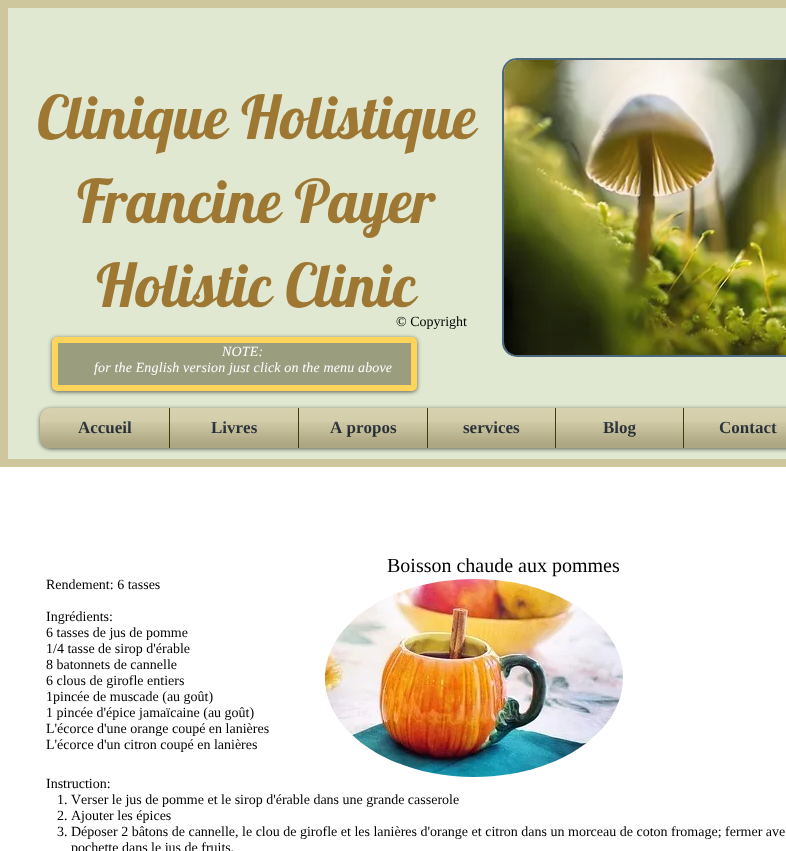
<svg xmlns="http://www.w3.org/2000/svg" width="786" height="851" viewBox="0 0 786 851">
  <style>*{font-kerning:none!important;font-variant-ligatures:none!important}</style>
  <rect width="100%" height="100%" fill="#cec69c"/>
  <path d="M8 8h778v451H8z" fill="#e0e8d1"/>
  <rect x="503" y="59" width="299" height="297" rx="14" fill="none" stroke="#4b687e" stroke-width="2"/>
  <image x="504" y="60" width="282" height="295" href="img/1.png"/>
  <rect x="52" y="338" width="365" height="54" rx="5" fill="#00000099" filter="blur(2px)"/>
  <rect x="55" y="340" width="359" height="48" rx="2" fill="#9a9e7f" stroke="#ffd45a" stroke-width="6"/>
  <rect x="40" y="409" width="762" height="40" rx="10" fill="#00000099" filter="blur(2px)"/>
  <image x="40" y="408" width="10" height="10" href="img/2.png"/>
  <image x="40" y="438" width="10" height="10" href="img/3.png"/>
  <path d="M50 408H169V448H50C44.5 448 40 443.5 40 438V418C40 412.5 44.5 408 50 408Z" fill="#cec69c"/>
  <path d="M170 408h128v40H170z" fill="#cec69c"/>
  <path d="M169 408h1v40H169z" fill="#3f3d06"/>
  <path d="M299 408h128v40H299z" fill="#cec69c"/>
  <path d="M298 408h1v40H298z" fill="#3f3d06"/>
  <path d="M428 408h127v40H428z" fill="#cec69c"/>
  <path d="M427 408h1v40H427z" fill="#3f3d06"/>
  <path d="M556 408h127v40H556z" fill="#cec69c"/>
  <path d="M555 408h1v40H555z" fill="#3f3d06"/>
  <path d="M684 408h102v40H684z" fill="#cec69c"/>
  <path d="M683 408h1v40H683z" fill="#3f3d06"/>
  <path d="M0 467h786v384H0z" fill="#fff"/>
  <image x="325" y="579" width="298" height="198" href="img/16.png"/>
  <g font-family="Lobster" font-size="60" fill="#9e7833">
    <text x="37" y="139">Clinique Holistique</text>
    <text x="77" y="223">Francine Payer</text>
    <text x="96" y="307">Holistic Clinic</text>
  </g>
  <text x="396" y="326" font-family="Liberation Serif" font-size="14" fill="#000">© Copyright</text>
  <g font-family="Liberation Serif" font-size="14" font-style="italic" letter-spacing="0.15" fill="#fff">
    <text x="222" y="356">NOTE:</text>
    <text x="94" y="372">for the English version just click on the menu above</text>
  </g>
  <text x="78" y="433" font-family="Liberation Serif" font-size="17" font-weight="bold" fill="#19232a">Accueil</text>
  <image x="40" y="408" width="129" height="29" href="img/4.png"/>
  <image x="40" y="422" width="129" height="26" href="img/5.png"/>
  <text x="211" y="433" font-family="Liberation Serif" font-size="17" font-weight="bold" fill="#19232a">Livres</text>
  <image x="170" y="408" width="128" height="29" href="img/6.png"/>
  <image x="170" y="422" width="128" height="26" href="img/7.png"/>
  <text x="330" y="433" font-family="Liberation Serif" font-size="17" font-weight="bold" fill="#19232a">A propos</text>
  <image x="299" y="408" width="128" height="29" href="img/8.png"/>
  <image x="299" y="422" width="128" height="26" href="img/9.png"/>
  <text x="463" y="433" font-family="Liberation Serif" font-size="17" font-weight="bold" fill="#19232a">services</text>
  <image x="428" y="408" width="127" height="29" href="img/10.png"/>
  <image x="428" y="422" width="127" height="26" href="img/11.png"/>
  <text x="603" y="433" font-family="Liberation Serif" font-size="17" font-weight="bold" fill="#19232a">Blog</text>
  <image x="556" y="408" width="127" height="29" href="img/12.png"/>
  <image x="556" y="422" width="127" height="26" href="img/13.png"/>
  <text x="719" y="433" font-family="Liberation Serif" font-size="17" font-weight="bold" fill="#19232a">Contact</text>
  <image x="684" y="408" width="102" height="29" href="img/14.png"/>
  <image x="684" y="422" width="102" height="26" href="img/15.png"/>
  <text x="387" y="572" font-family="Liberation Serif" font-size="20" fill="#000">Boisson chaude aux pommes</text>
  <g font-family="Liberation Serif" font-size="14" fill="#000">
    <text x="46" y="589">Rendement: 6 tasses</text>
    <text x="46" y="621">Ingrédients:</text>
    <text x="46" y="637">6 tasses de jus de pomme</text>
    <text x="46" y="653">1/4 tasse de sirop d'érable</text>
    <text x="46" y="669">8 batonnets de cannelle</text>
    <text x="46" y="685">6 clous de girofle entiers</text>
    <text x="46" y="701">1pincée de muscade (au goût)</text>
    <text x="46" y="717">1 pincée d'épice jamaïcaine (au goût)</text>
    <text x="46" y="733">L'écorce d'une orange coupé en lanières</text>
    <text x="46" y="749">L'écorce d'un citron coupé en lanières</text>
    <text x="46" y="788">Instruction:</text>
    <text x="57" y="804">1. Verser le jus de pomme et le sirop d'érable dans une grande casserole</text>
    <text x="57" y="820">2. Ajouter les épices</text>
    <text x="57" y="836">3. Déposer 2 bâtons de cannelle, le clou de girofle et les lanières d'orange et citron dans un morceau de coton fromage; fermer ave</text>
    <text x="71" y="852">pochette dans le jus de fruits.</text>
  </g>
</svg>
